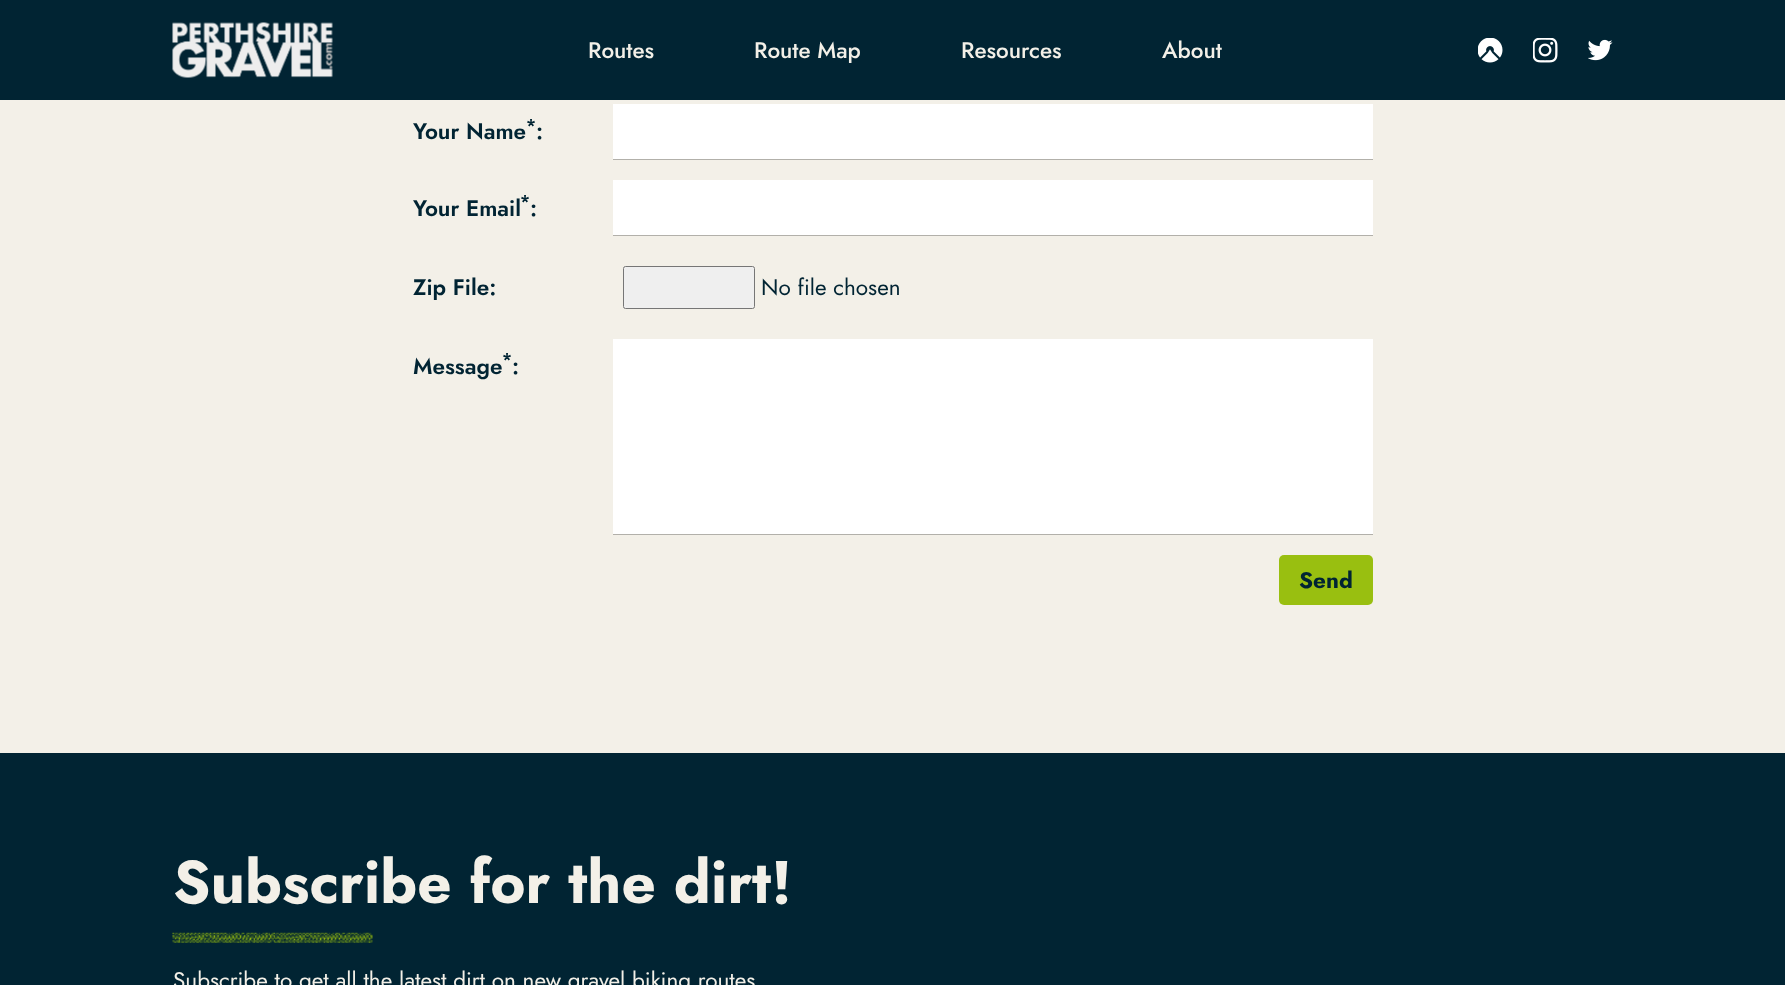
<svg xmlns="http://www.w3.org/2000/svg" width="1785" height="985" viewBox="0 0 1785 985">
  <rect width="100%" height="100%" fill="#f3f0e8"/>
  <path d="M0 0h1785v100H0z" fill="#012433"/>
  <image x="172" y="22" width="161" height="56" href="img/1.png"/>
  <image x="1478" y="38" width="25" height="25" href="img/2.png"/>
  <image x="1533" y="38" width="25" height="25" href="img/3.png"/>
  <image x="1588" y="39" width="25" height="22" href="img/4.png"/>
  <path d="M613 104h760v55H613z" fill="#fff"/>
  <path d="M613 159h760v1H613z" fill="#b2b0aa"/>
  <path d="M613 180h760v55H613z" fill="#fff"/>
  <path d="M613 235h760v1H613z" fill="#b2b0aa"/>
  <rect x="623.5" y="266.5" width="131" height="42" rx="2" fill="#efefef" stroke="#767676"/>
  <path d="M613 339h760v195H613z" fill="#fff"/>
  <path d="M613 534h760v1H613z" fill="#b2b0aa"/>
  <rect x="1279" y="555" width="94" height="50" rx="5" fill="#99bf10"/>
  <path d="M0 753h1785v232H0z" fill="#012433"/>
  <image x="172" y="932" width="201" height="11" href="img/5.png"/>
  <g font-family="Jost" font-size="22.5" font-weight="500" fill="#f3f0e8">
    <text x="588" y="58">Routes</text>
    <text x="754" y="58">Route Map</text>
    <text x="961" y="58">Resources</text>
    <text x="1162" y="58">About</text>
  </g>
  <text x="413" y="139" font-family="Jost" font-size="22.5" font-weight="600" fill="#012433">Your Name</text>
  <text x="526" y="131" font-family="Jost" font-size="17" font-weight="600" fill="#012433">*</text>
  <g font-family="Jost" font-size="22.5" font-weight="600" fill="#012433">
    <text x="536" y="139">:</text>
    <text x="413" y="216">Your Email</text>
  </g>
  <text x="520" y="207" font-family="Jost" font-size="17" font-weight="600" fill="#012433">*</text>
  <g font-family="Jost" font-size="22.5" font-weight="600" fill="#012433">
    <text x="530" y="216">:</text>
    <text x="413" y="295">Zip File:</text>
  </g>
  <text x="761" y="295" font-family="Jost" font-size="22.5" fill="#012433">No file chosen</text>
  <text x="413" y="374" font-family="Jost" font-size="22.5" font-weight="600" fill="#012433">Message</text>
  <text x="502" y="365" font-family="Jost" font-size="17" font-weight="600" fill="#012433">*</text>
  <text x="512" y="374" font-family="Jost" font-size="22.5" font-weight="600" fill="#012433">:</text>
  <text x="1299" y="588" font-family="Jost" font-size="22.5" font-weight="bold" fill="#012433">Send</text>
  <text x="173" y="903" font-family="Jost" font-size="60" font-weight="bold" fill="#f3f0e8">Subscribe for the dirt!</text>
  <text x="173" y="988" font-family="Jost" font-size="22.5" fill="#f3f0e8">Subscribe to get all the latest dirt on new gravel biking routes</text>
</svg>
